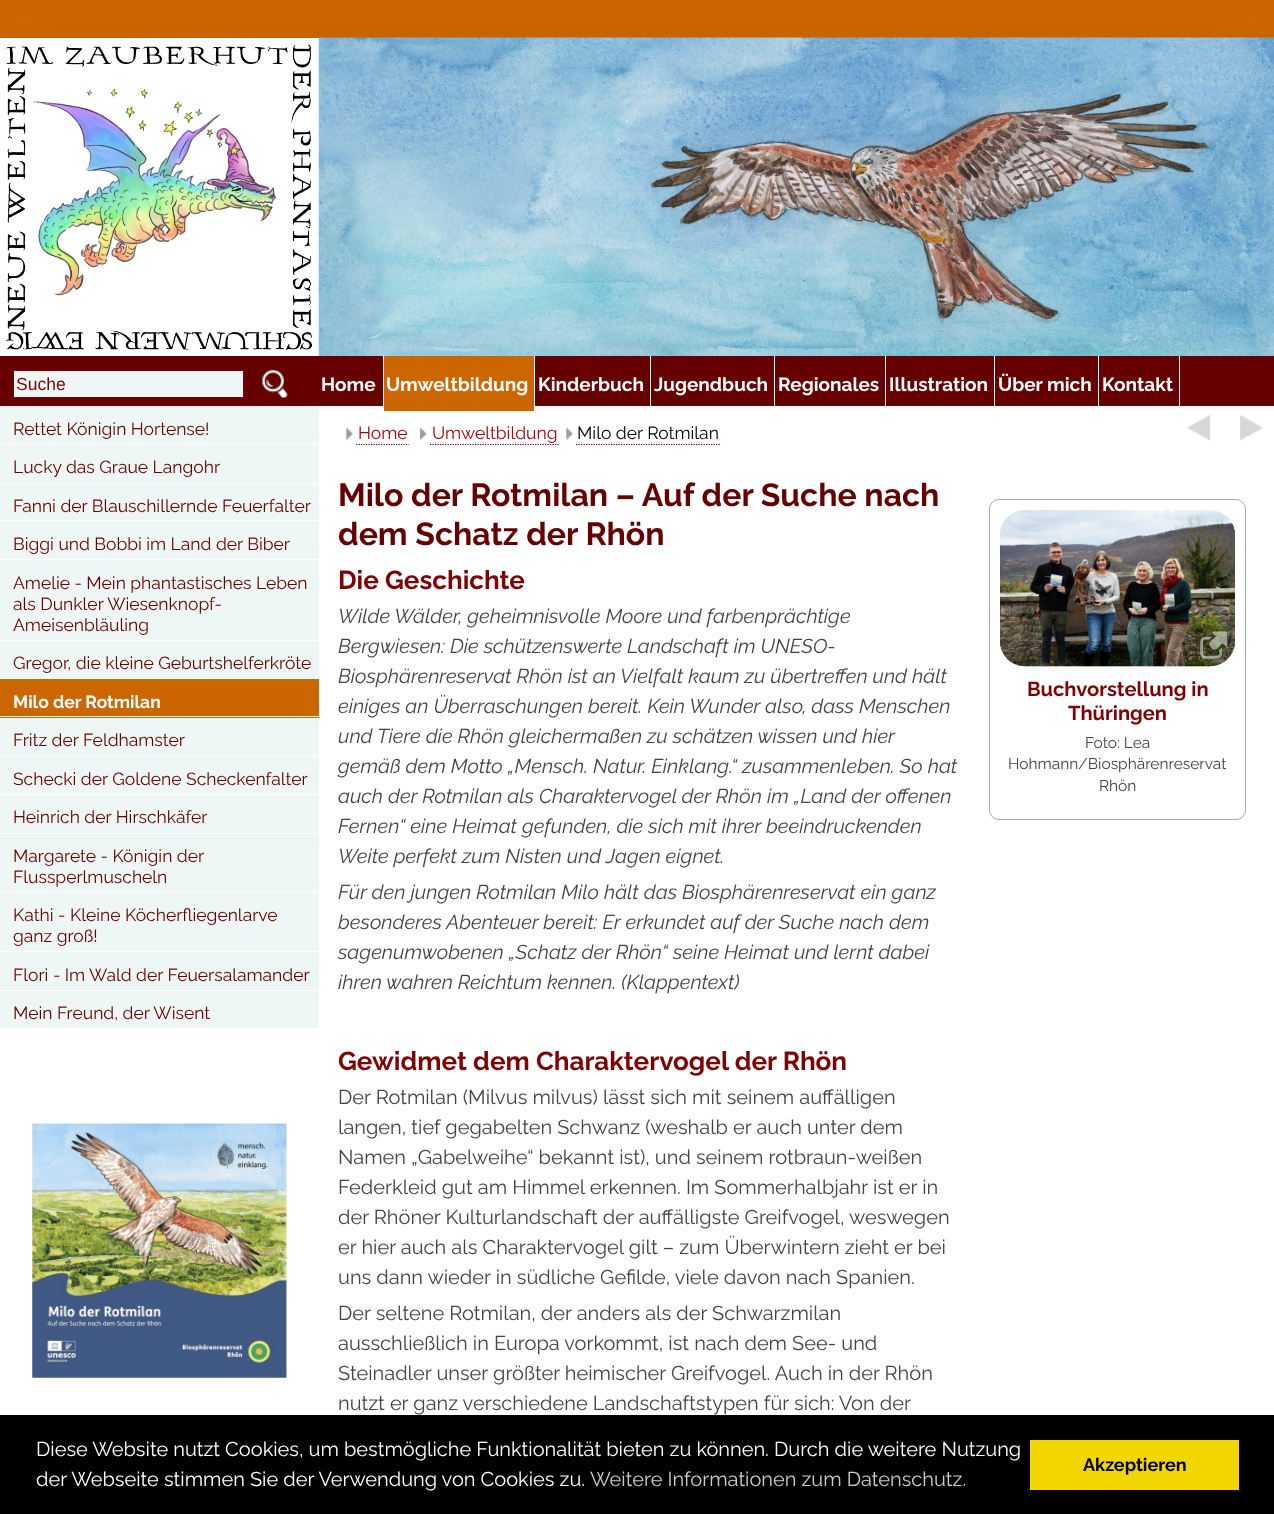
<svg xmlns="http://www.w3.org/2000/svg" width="1274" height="1514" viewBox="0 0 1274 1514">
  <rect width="100%" height="100%" fill="#c60"/>
  <path d="M13 75h1250v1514H13z" fill="#00000066" filter="blur(25px)"/>
  <path d="M0 38h1274v1377H0z" fill="#fff"/>
  <image x="6" y="44" width="306" height="306" href="img/1.png"/>
  <image x="318" y="37" width="956" height="319" href="img/2.png"/>
  <path d="M0 356h1274v50H0z" fill="#600"/>
  <path d="M13.5 370.5h230v27H13.5z" fill="#eff6f6" stroke="#7f0002"/>
  <image x="261" y="369" width="28" height="30" href="img/3.png"/>
  <path d="M383 356h1v55H383z" fill="#fff"/>
  <path d="M384 356h150v55H384z" fill="#c60"/>
  <path d="M534 356h1v55H534z" fill="#fff"/>
  <path d="M650 356h1v55H650z" fill="#fff"/>
  <path d="M774 356h1v55H774z" fill="#fff"/>
  <path d="M885 356h1v55H885z" fill="#fff"/>
  <path d="M994 356h1v55H994z" fill="#fff"/>
  <path d="M1098 356h1v55H1098z" fill="#fff"/>
  <path d="M1179 356h1v55H1179z" fill="#fff"/>
  <path d="M0 406h319v622H0z" fill="#eff6f6"/>
  <path d="M0 444h319v1H0z" fill="#fff"/>
  <path d="M0 483h319v1H0z" fill="#fff"/>
  <path d="M0 520h319v1H0z" fill="#fff"/>
  <path d="M0 559h319v1H0z" fill="#fff"/>
  <path d="M0 640h319v1H0z" fill="#fff"/>
  <path d="M0 678h319v1H0z" fill="#fff"/>
  <path d="M0 679h319v39H0z" fill="#c60"/>
  <path d="M0 716h319v1H0z" fill="#fff"/>
  <path d="M0 755h319v1H0z" fill="#fff"/>
  <path d="M0 794h319v1H0z" fill="#fff"/>
  <path d="M0 833h319v1H0z" fill="#fff"/>
  <path d="M0 891h319v1H0z" fill="#fff"/>
  <path d="M0 951h319v1H0z" fill="#fff"/>
  <path d="M0 990h319v1H0z" fill="#fff"/>
  <image x="32" y="1123" width="255" height="255" href="img/4.png"/>
  <image x="32" y="1123" width="255" height="255" href="img/5.png"/>
  <image x="346" y="427" width="7" height="14" href="img/6.png"/>
  <path d="M356 444.5H409" fill="none" stroke="#600" stroke-width="1.2" stroke-dasharray="1.25 1.25"/>
  <image x="419" y="427" width="8" height="14" href="img/7.png"/>
  <path d="M430 444.5H559" fill="none" stroke="#600" stroke-width="1.2" stroke-dasharray="1.25 1.25"/>
  <image x="566" y="427" width="7" height="14" href="img/6.png"/>
  <path d="M576 444.5H720" fill="none" stroke="#600" stroke-width="1.2" stroke-dasharray="1.25 1.25"/>
  <image x="1187" y="415" width="24" height="26" href="img/8.png"/>
  <image x="1240" y="415" width="23" height="26" href="img/9.png"/>
  <rect x="989.5" y="499.5" width="256" height="320" rx="9.5" fill="none" stroke="#aaa"/>
  <image x="1000" y="510" width="235" height="157" href="img/10.png"/>
  <image x="1000" y="510" width="235" height="157" href="img/11.png"/>
  <image x="1199" y="630" width="29" height="30" href="img/12.png"/>
  <path d="M0 1415h1274v99H0z" fill="#000"/>
  <path d="M1030 1440h209v50H1030z" fill="#f1d600"/>
  <text x="16" y="390" font-family="Liberation Sans" font-size="17.5" fill="#7f0002">Suche</text>
  <g font-family="Raleway" font-size="19" font-weight="bold" fill="#fff">
    <text x="321" y="391">Home</text>
    <text x="386" y="391">Umweltbildung</text>
    <text x="538" y="391">Kinderbuch</text>
    <text x="654" y="391">Jugendbuch</text>
    <text x="778" y="391">Regionales</text>
    <text x="889" y="391">Illustration</text>
    <text x="998" y="391">Über mich</text>
    <text x="1102" y="391">Kontakt</text>
  </g>
  <g font-family="Raleway" font-size="17.5" fill="#600">
    <text x="13" y="435">Rettet Königin Hortense!</text>
    <text x="13" y="473">Lucky das Graue Langohr</text>
    <text x="13" y="512">Fanni der Blauschillernde Feuerfalter</text>
    <text x="13" y="550">Biggi und Bobbi im Land der Biber</text>
    <text x="13" y="589">Amelie - Mein phantastisches Leben</text>
    <text x="13" y="610">als Dunkler Wiesenknopf-</text>
    <text x="13" y="631">Ameisenbläuling</text>
    <text x="13" y="669">Gregor, die kleine Geburtshelferkröte</text>
  </g>
  <text x="13" y="708" font-family="Raleway" font-size="17.5" font-weight="bold" fill="#fff">Milo der Rotmilan</text>
  <g font-family="Raleway" font-size="17.5" fill="#600">
    <text x="13" y="746">Fritz der Feldhamster</text>
    <text x="13" y="785">Schecki der Goldene Scheckenfalter</text>
    <text x="13" y="823">Heinrich der Hirschkäfer</text>
    <text x="13" y="862">Margarete - Königin der</text>
    <text x="13" y="883">Flussperlmuscheln</text>
    <text x="13" y="921">Kathi - Kleine Köcherfliegenlarve</text>
    <text x="13" y="942">ganz groß!</text>
    <text x="13" y="981">Flori - Im Wald der Feuersalamander</text>
    <text x="13" y="1019">Mein Freund, der Wisent</text>
  </g>
  <g font-family="Raleway" font-size="17.5" fill="#a80004">
    <text x="358" y="439">Home</text>
    <text x="432" y="439">Umweltbildung</text>
  </g>
  <text x="577" y="439" font-family="Raleway" font-size="17.5" fill="#000">Milo der Rotmilan</text>
  <g font-family="Raleway" font-size="32" font-weight="bold" fill="#600">
    <text x="338" y="506">Milo der Rotmilan – Auf der Suche nach</text>
    <text x="338" y="545">dem Schatz der Rhön</text>
  </g>
  <text x="338" y="589" font-family="Raleway" font-size="26" font-weight="bold" fill="#7f0002">Die Geschichte</text>
  <g font-family="Raleway" font-size="20" font-style="italic" fill="#444">
    <text x="338" y="623">Wilde Wälder, geheimnisvolle Moore und farbenprächtige</text>
    <text x="338" y="653">Bergwiesen: Die schützenswerte Landschaft im UNESO-</text>
    <text x="338" y="683">Biosphärenreservat Rhön ist an Vielfalt kaum zu übertreffen und hält</text>
    <text x="338" y="713">einiges an Überraschungen bereit. Kein Wunder also, dass Menschen</text>
    <text x="338" y="743">und Tiere die Rhön gleichermaßen zu schätzen wissen und hier</text>
    <text x="338" y="773">gemäß dem Motto „Mensch. Natur. Einklang.“ zusammenleben. So hat</text>
    <text x="338" y="803">auch der Rotmilan als Charaktervogel der Rhön im „Land der offenen</text>
    <text x="338" y="833">Fernen“ eine Heimat gefunden, die sich mit ihrer beeindruckenden</text>
    <text x="338" y="863">Weite perfekt zum Nisten und Jagen eignet.</text>
    <text x="338" y="899">Für den jungen Rotmilan Milo hält das Biosphärenreservat ein ganz</text>
    <text x="338" y="929">besonderes Abenteuer bereit: Er erkundet auf der Suche nach dem</text>
    <text x="338" y="959">sagenumwobenen „Schatz der Rhön“ seine Heimat und lernt dabei</text>
    <text x="338" y="989">ihren wahren Reichtum kennen. (Klappentext)</text>
  </g>
  <text x="338" y="1070" font-family="Raleway" font-size="26" font-weight="bold" fill="#7f0002">Gewidmet dem Charaktervogel der Rhön</text>
  <g font-family="Raleway" font-size="20" fill="#444">
    <text x="338" y="1104">Der Rotmilan (Milvus milvus) lässt sich mit seinem auffälligen</text>
    <text x="338" y="1134">langen, tief gegabelten Schwanz (weshalb er auch unter dem</text>
    <text x="338" y="1164">Namen „Gabelweihe“ bekannt ist), und seinem rotbraun-weißen</text>
    <text x="338" y="1194">Federkleid gut am Himmel erkennen. Im Sommerhalbjahr ist er in</text>
    <text x="338" y="1224">der Rhöner Kulturlandschaft der auffälligste Greifvogel, weswegen</text>
    <text x="338" y="1254">er hier auch als Charaktervogel gilt – zum Überwintern zieht er bei</text>
    <text x="338" y="1284">uns dann wieder in südliche Gefilde, viele davon nach Spanien.</text>
    <text x="338" y="1320">Der seltene Rotmilan, der anders als der Schwarzmilan</text>
    <text x="338" y="1350">ausschließlich in Europa vorkommt, ist nach dem See- und</text>
    <text x="338" y="1380">Steinadler unser größter heimischer Greifvogel. Auch in der Rhön</text>
    <text x="338" y="1410">nutzt er ganz verschiedene Landschaftstypen für sich: Von der</text>
  </g>
  <g font-family="Raleway" font-size="20.1" font-weight="bold" fill="#7f0002">
    <text x="1027" y="696">Buchvorstellung in</text>
    <text x="1068" y="720">Thüringen</text>
  </g>
  <g font-family="Raleway" font-size="15.5" fill="#444">
    <text x="1085" y="748">Foto: Lea</text>
    <text x="1008" y="769">Hohmann/Biosphärenreservat</text>
    <text x="1099" y="791">Rhön</text>
  </g>
  <g font-family="Raleway" font-size="20" fill="#fff">
    <text x="36" y="1456">Diese Website nutzt Cookies, um bestmögliche Funktionalität bieten zu können. Durch die weitere Nutzung</text>
    <text x="36" y="1486">der Webseite stimmen Sie der Verwendung von Cookies zu.</text>
  </g>
  <text x="590" y="1486" font-family="Raleway" font-size="20" fill="#ccc">Weitere Informationen zum Datenschutz.</text>
  <text x="1083" y="1471" font-family="Raleway" font-size="18" font-weight="bold" fill="#000">Akzeptieren</text>
</svg>
